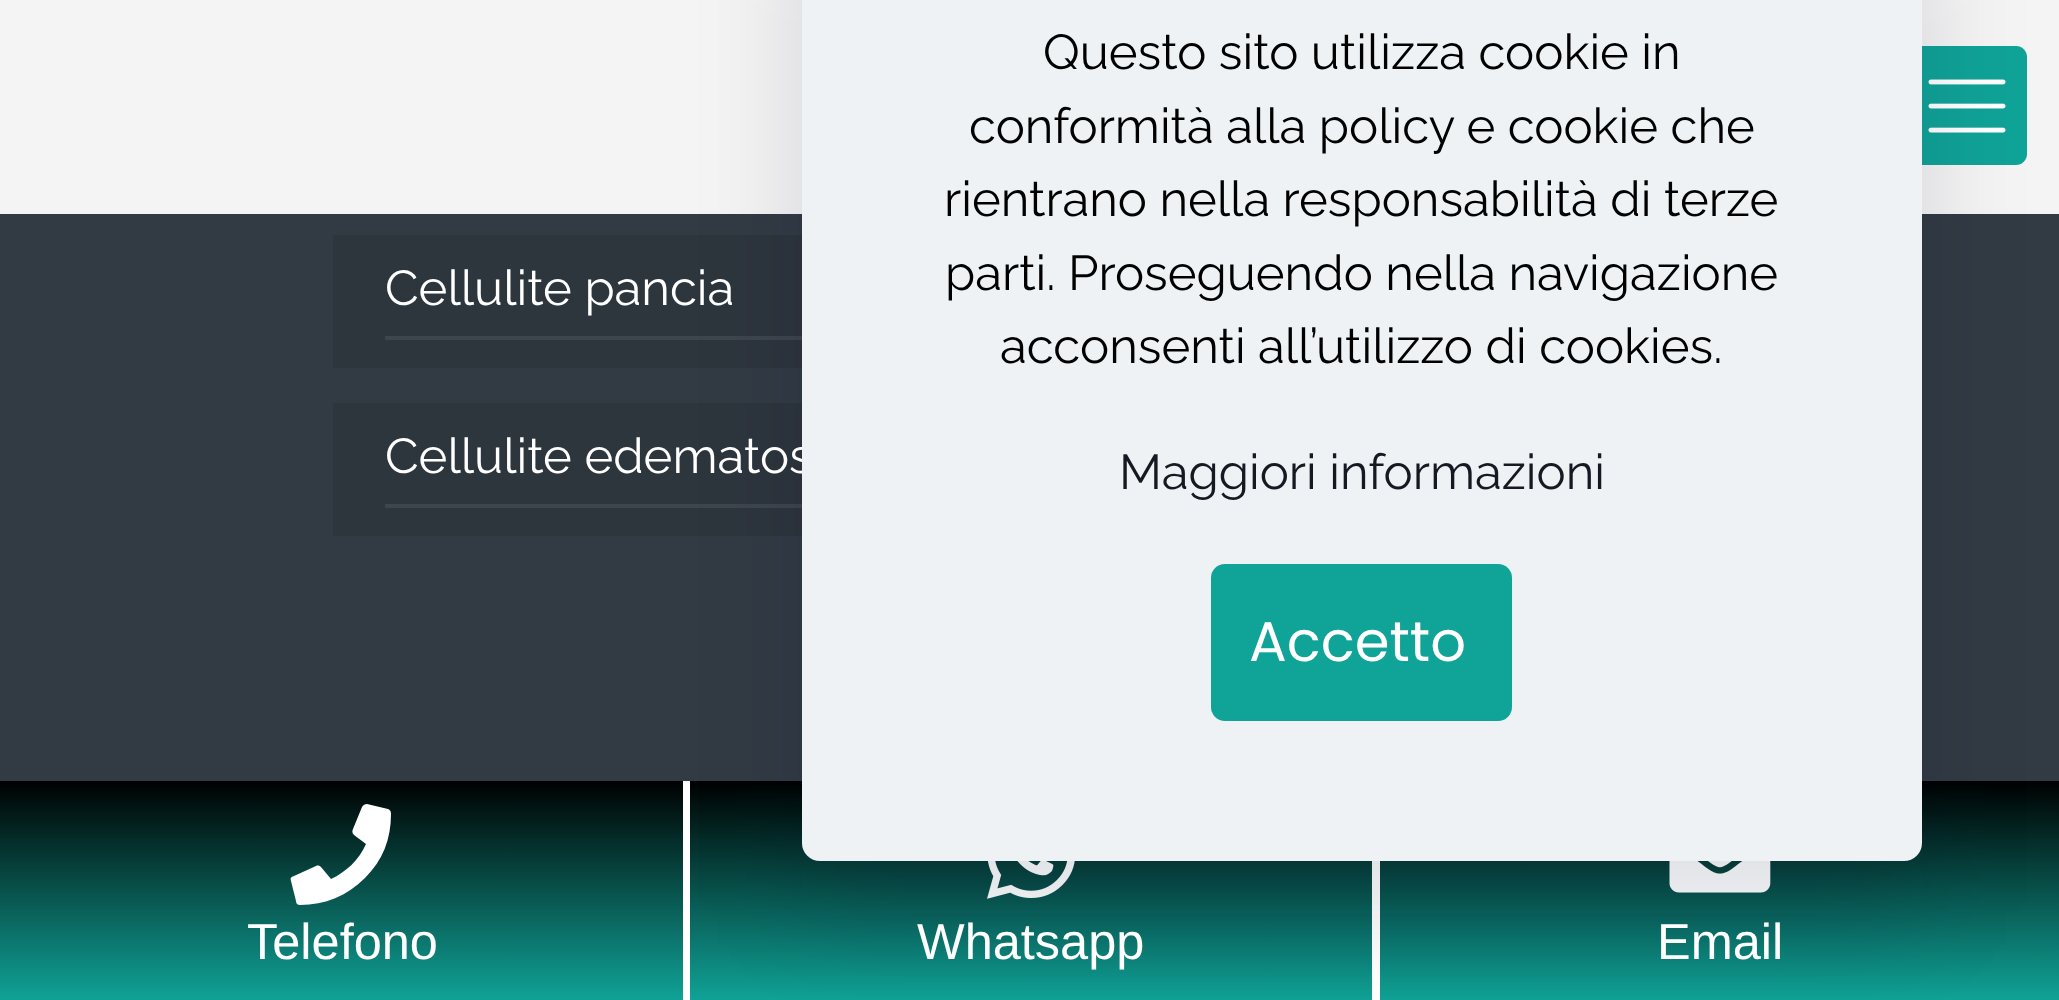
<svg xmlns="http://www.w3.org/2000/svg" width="2059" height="1000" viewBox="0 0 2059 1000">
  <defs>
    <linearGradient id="g1" gradientUnits="userSpaceOnUse" x1="1031" y1="780" x2="1031" y2="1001"><stop offset="0" stop-color="#000"/><stop offset="1" stop-color="#10a397"/></linearGradient>
  </defs>
  <rect width="100%" height="100%" fill="#323b44"/>
  <path d="M0 0h2059v214H0z" fill="#f4f4f4"/>
  <rect x="1908" y="46" width="119" height="119" rx="11" fill="#10a397"/>
  <image x="1928" y="79" width="78" height="54" href="img/1.png"/>
  <path d="M333 235h469v133H333z" fill="#2d353d"/>
  <path d="M385 336h417v4H385z" fill="#3e454d"/>
  <path d="M333 403h469v133H333z" fill="#2d353d"/>
  <path d="M385 504h417v4H385z" fill="#3e454d"/>
  <path d="M0 781h2059v219H0z" fill="url(#g1)"/>
  <path d="M683 781h7v219H683z" fill="#fff"/>
  <path d="M1372 861h8v139H1372z" fill="#fff"/>
  <image x="987" y="861" width="88" height="38" href="img/2.png"/>
  <image x="1669" y="861" width="102" height="32" href="img/3.png"/>
  <rect x="802" y="-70" width="1120" height="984" rx="18" fill="#01072721" filter="blur(52.5px)"/>
  <path d="M388 809C390 810 391 811 391 814C391 839 383 860 365 878C347 896 325 905 300 905C298 905 296 904 296 901L291 881C290 878 291 877 294 876L316 866C318 865 320 866 321 867L331 879C346 872 359 860 366 844L354 835C352 833 352 831 353 829L362 807C363 805 365 804 367 804Z" fill="#fff"/>
  <g font-family="Raleway" font-size="49" font-weight="100" fill="#fff">
    <text x="385" y="305">Cellulite pancia</text>
    <text x="385" y="473">Cellulite edematos</text>
  </g>
  <rect x="802" y="-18" width="1120" height="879" rx="18" fill="#eef2f5"/>
  <g font-family="Raleway" font-size="49" font-weight="100" fill="#000">
    <text x="1043" y="69">Questo sito utilizza cookie in</text>
    <text x="969" y="143">conformità alla policy e cookie che</text>
    <text x="944" y="216">rientrano nella responsabilità di terze</text>
    <text x="945" y="290">parti. Proseguendo nella navigazione</text>
    <text x="1000" y="363">acconsenti all’utilizzo di cookies.</text>
  </g>
  <text x="1119" y="489" font-family="Raleway" font-size="49" font-weight="100" fill="#161922">Maggiori informazioni</text>
  <rect x="1211" y="564" width="301" height="157" rx="14" fill="#10a397"/>
  <text x="1249" y="661" font-family="Poppins" font-size="56" fill="#fff">Accetto</text>
  <g font-family="Liberation Sans" font-size="50.5" fill="#fff">
    <text x="247" y="959">Telefono</text>
    <text x="917" y="959">Whatsapp</text>
    <text x="1657" y="959">Email</text>
  </g>
</svg>
